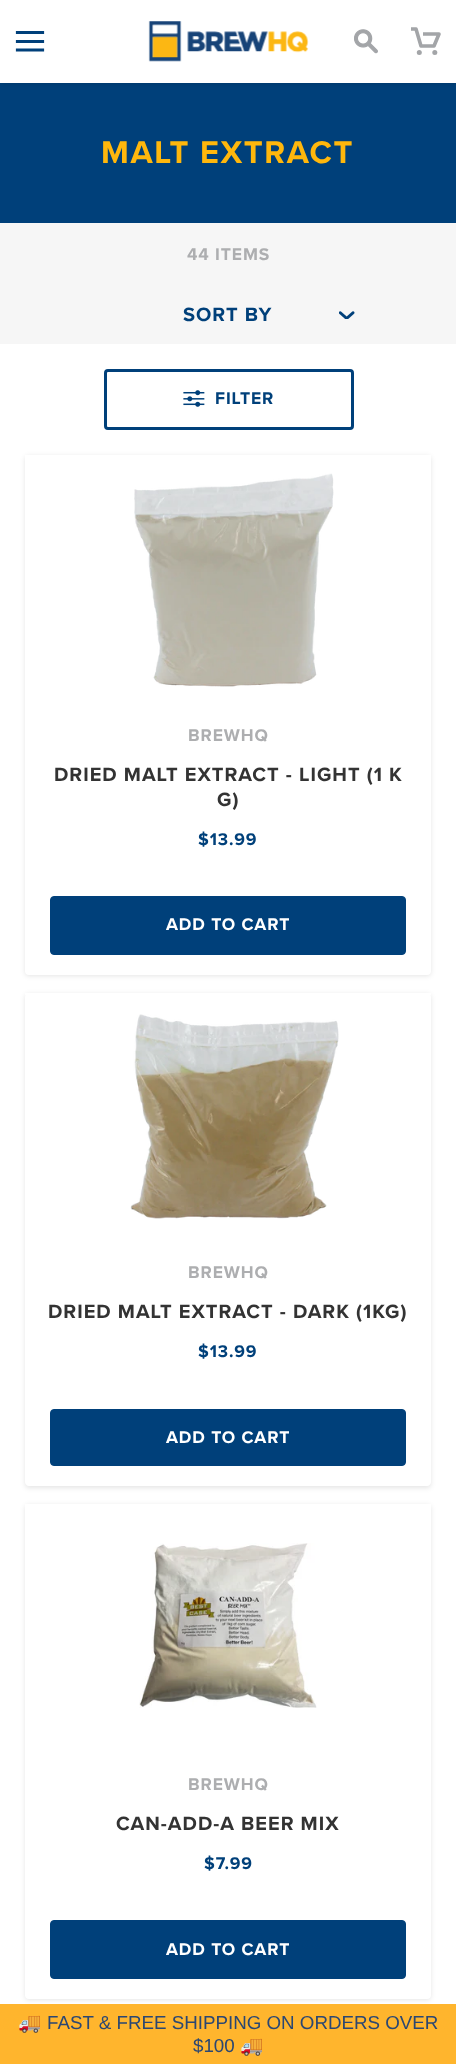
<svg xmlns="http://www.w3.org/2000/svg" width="456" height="2064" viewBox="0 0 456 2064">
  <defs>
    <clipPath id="clip1"><path d="M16 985H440V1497H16ZM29 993H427C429 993 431 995 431 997V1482C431 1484 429 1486 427 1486H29C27 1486 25 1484 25 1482V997C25 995 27 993 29 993Z" clip-rule="evenodd"/></clipPath>
  </defs>
  <rect width="100%" height="100%" fill="#fff"/>
  <path d="M0 83h456v140H0z" fill="#00407a"/>
  <path d="M0 3h456v82H0z" fill="#00000017" filter="blur(2.5px)"/>
  <path d="M0 0h456v83H0z" fill="#fff"/>
  <path d="M17.5 32.5H42.5M17.5 41.5H42.5M17.5 50H42.5" fill="none" stroke="#00407a" stroke-width="3.2" stroke-linecap="square"/>
  <image x="148" y="21" width="161" height="41" href="img/1.png"/>
  <image x="354" y="29" width="24" height="25" href="img/2.png"/>
  <path d="M423 34H439L434 46H421L416 29H411" fill="none" stroke="#a3a5a8" stroke-width="3.6" stroke-linejoin="round"/>
  <circle cx="434.8" cy="52.4" r="2.5" fill="#a3a5a8"/>
  <circle cx="419.3" cy="52.4" r="2.5" fill="#a3a5a8"/>
  <path d="M0 223h456v121H0z" fill="#f6f6f6"/>
  <image x="339" y="311" width="16" height="8" href="img/3.png"/>
  <rect x="105.5" y="370.5" width="247" height="58" rx="2.5" fill="none" stroke="#00407a" stroke-width="3"/>
  <image x="183" y="390" width="22" height="17" href="img/4.png"/>
  <rect x="25" y="456" width="406" height="520" rx="4" fill="#0000001a" filter="blur(2.5px)"/>
  <rect x="25" y="455" width="406" height="520" rx="4" fill="#fff"/>
  <path d="M25 455h406v3H25z" fill="#fff"/>
  <image x="134" y="473" width="200" height="214" href="img/5.png"/>
  <rect x="50.5" y="896.5" width="355" height="58" rx="3.5" fill="#00407a" stroke="#00407a"/>
  <g clip-path="url(#clip1)">
    <rect x="25" y="994" width="406" height="494" rx="4" fill="#0000001a" filter="blur(2.5px)"/>
  </g>
  <path d="M25 993h406v2H25z" fill="#fff"/>
  <image x="130" y="1014" width="209" height="205" href="img/6.png"/>
  <rect x="50.5" y="1409.5" width="355" height="56" rx="3.5" fill="#00407a" stroke="#00407a"/>
  <rect x="25" y="1505" width="406" height="495" rx="4" fill="#0000001a" filter="blur(2.5px)"/>
  <rect x="25" y="1504" width="406" height="495" rx="4" fill="#fff"/>
  <path d="M25 1504h406v3H25z" fill="#fff"/>
  <image x="139" y="1543" width="178" height="165" href="img/7.png"/>
  <rect x="50.5" y="1920.5" width="355" height="58" rx="3.5" fill="#00407a" stroke="#00407a"/>
  <path d="M0 2004h456v60H0z" fill="#ffb52d"/>
  <text x="101" y="163" font-family="Proxima Nova" font-size="32.5" font-weight="bold" letter-spacing="1.6" fill="#ffb70c">MALT EXTRACT</text>
  <text x="187" y="260" font-family="Proxima Nova" font-size="17.5" font-weight="bold" letter-spacing="0.9" fill="#adaeb0">44 ITEMS</text>
  <text x="183" y="321" font-family="Proxima Nova" font-size="20" font-weight="bold" letter-spacing="1" fill="#00407a">SORT BY</text>
  <text x="215" y="404" font-family="Proxima Nova" font-size="17.5" font-weight="bold" letter-spacing="0.9" fill="#00407a">FILTER</text>
  <text x="188" y="741" font-family="Proxima Nova" font-size="17.5" font-weight="bold" letter-spacing="0.9" fill="#adaeb0">BREWHQ</text>
  <g font-family="Proxima Nova" font-size="20" font-weight="bold" letter-spacing="1" fill="#333">
    <text x="54" y="781">DRIED MALT EXTRACT - LIGHT (1 K</text>
    <text x="217" y="806">G)</text>
  </g>
  <text x="198" y="845" font-family="Proxima Nova" font-size="17.5" font-weight="bold" letter-spacing="0.9" fill="#00407a">$13.99</text>
  <text x="166" y="930" font-family="Proxima Nova" font-size="17.5" font-weight="bold" letter-spacing="0.9" fill="#fff">ADD TO CART</text>
  <text x="188" y="1278" font-family="Proxima Nova" font-size="17.5" font-weight="bold" letter-spacing="0.9" fill="#adaeb0">BREWHQ</text>
  <text x="48" y="1318" font-family="Proxima Nova" font-size="20" font-weight="bold" letter-spacing="1" fill="#333">DRIED MALT EXTRACT - DARK (1KG)</text>
  <text x="198" y="1357" font-family="Proxima Nova" font-size="17.5" font-weight="bold" letter-spacing="0.9" fill="#00407a">$13.99</text>
  <text x="166" y="1443" font-family="Proxima Nova" font-size="17.5" font-weight="bold" letter-spacing="0.9" fill="#fff">ADD TO CART</text>
  <text x="188" y="1790" font-family="Proxima Nova" font-size="17.5" font-weight="bold" letter-spacing="0.9" fill="#adaeb0">BREWHQ</text>
  <text x="116" y="1830" font-family="Proxima Nova" font-size="20" font-weight="bold" letter-spacing="1" fill="#333">CAN-ADD-A BEER MIX</text>
  <text x="204" y="1869" font-family="Proxima Nova" font-size="17.5" font-weight="bold" letter-spacing="0.9" fill="#00407a">$7.99</text>
  <text x="166" y="1955" font-family="Proxima Nova" font-size="17.5" font-weight="bold" letter-spacing="0.9" fill="#fff">ADD TO CART</text>
  <text x="18" y="2029" font-family="Noto Color Emoji" font-size="18.75" fill="#2b4772">🚚</text>
  <g font-family="Liberation Sans" font-size="18.75" fill="#2b4772">
    <text x="47" y="2029">FAST &amp; FREE SHIPPING ON ORDERS OVER</text>
    <text x="193" y="2052">$100</text>
  </g>
  <text x="240" y="2052" font-family="Noto Color Emoji" font-size="18.75" fill="#2b4772">🚚</text>
</svg>
